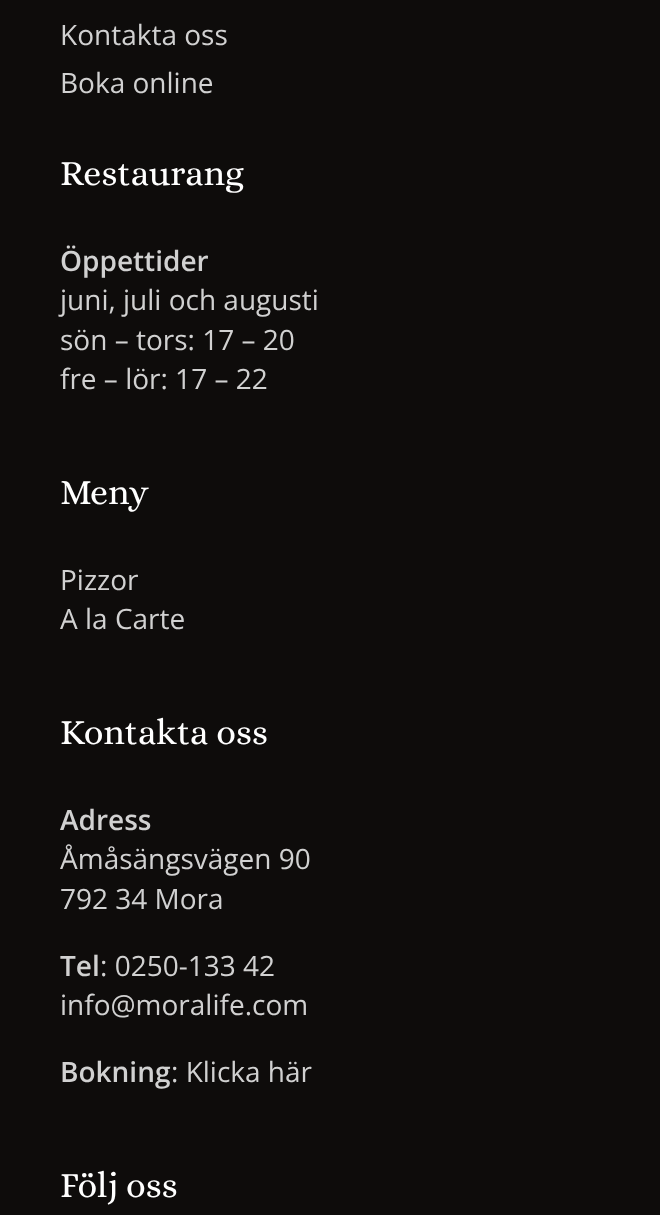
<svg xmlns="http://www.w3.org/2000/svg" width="660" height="1215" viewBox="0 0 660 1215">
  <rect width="100%" height="100%" fill="#0e0c0b"/>
  <g font-family="Open Sans" font-size="28" fill="#d1d1d1">
    <text x="60" y="45">Kontakta oss</text>
    <text x="60" y="93">Boka online</text>
  </g>
  <text x="60" y="185" font-family="Alice" font-size="36" fill="#fff">Restaurang</text>
  <text x="60" y="271" font-family="Open Sans" font-size="28" font-weight="600" fill="#d1d1d1">Öppettider</text>
  <g font-family="Open Sans" font-size="28" fill="#d1d1d1">
    <text x="60" y="310">juni, juli och augusti</text>
    <text x="60" y="350">sön – tors: 17 – 20</text>
    <text x="60" y="389">fre – lör: 17 – 22</text>
  </g>
  <text x="60" y="504" font-family="Alice" font-size="36" fill="#fff">Meny</text>
  <g font-family="Open Sans" font-size="28" fill="#d1d1d1">
    <text x="60" y="590">Pizzor</text>
    <text x="60" y="629">A la Carte</text>
  </g>
  <text x="60" y="744" font-family="Alice" font-size="36" fill="#fff">Kontakta oss</text>
  <text x="60" y="830" font-family="Open Sans" font-size="28" font-weight="600" fill="#d1d1d1">Adress</text>
  <g font-family="Open Sans" font-size="28" fill="#d1d1d1">
    <text x="60" y="869">Åmåsängsvägen 90</text>
    <text x="60" y="909">792 34 Mora</text>
  </g>
  <text x="60" y="976" font-family="Open Sans" font-size="28" font-weight="600" fill="#d1d1d1">Tel</text>
  <g font-family="Open Sans" font-size="28" fill="#d1d1d1">
    <text x="100" y="976">: 0250-133 42</text>
    <text x="60" y="1015">info@moralife.com</text>
  </g>
  <text x="60" y="1082" font-family="Open Sans" font-size="28" font-weight="600" fill="#d1d1d1">Bokning</text>
  <text x="171" y="1082" font-family="Open Sans" font-size="28" fill="#d1d1d1">: Klicka här</text>
  <text x="60" y="1197" font-family="Alice" font-size="36" fill="#fff">Följ oss</text>
</svg>
